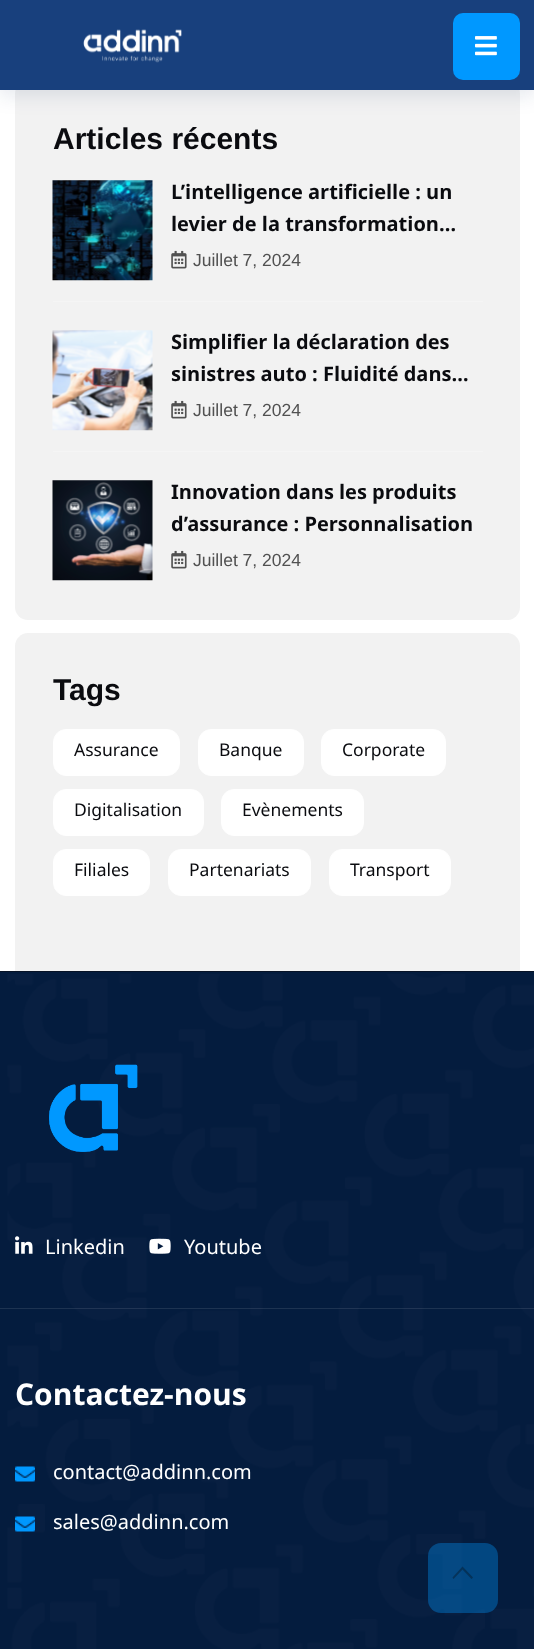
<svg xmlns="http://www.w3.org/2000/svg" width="534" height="1649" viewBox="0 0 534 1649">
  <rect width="100%" height="100%" fill="#fff"/>
  <rect x="15" y="81" width="505" height="539" rx="13" fill="#f2f2f2"/>
  <path d="M0 6h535v90H0z" fill="#0021551a" filter="blur(9.5px)"/>
  <path d="M0 0h534v90H0z" fill="#18407d"/>
  <image x="83" y="29" width="99" height="34" href="img/1.png"/>
  <rect x="453" y="13" width="67" height="67" rx="10" fill="#0098ff"/>
  <image x="475" y="36" width="22" height="20" href="img/2.png"/>
  <path d="M53 301h430v1H53z" fill="#f5f5f5"/>
  <image x="52" y="180" width="101" height="101" href="img/3.png"/>
  <image x="171" y="250" width="16" height="19" href="img/4.png"/>
  <path d="M53 451h430v1H53z" fill="#f5f5f5"/>
  <image x="52" y="330" width="101" height="101" href="img/5.png"/>
  <image x="171" y="400" width="16" height="19" href="img/4.png"/>
  <image x="52" y="480" width="101" height="101" href="img/6.png"/>
  <image x="171" y="550" width="16" height="19" href="img/4.png"/>
  <path d="M28 633H507C514 633 520 639 520 646V971H15V646C15 639 21 633 28 633Z" fill="#f2f2f2"/>
  <rect x="53.5" y="729.5" width="126" height="46" rx="12.5" fill="#fff" stroke="#fff"/>
  <rect x="198.5" y="729.5" width="105" height="46" rx="12.5" fill="#fff" stroke="#fff"/>
  <rect x="321.5" y="729.5" width="124" height="46" rx="12.5" fill="#fff" stroke="#fff"/>
  <rect x="53.5" y="789.5" width="150" height="46" rx="12.5" fill="#fff" stroke="#fff"/>
  <rect x="221.5" y="789.5" width="142" height="46" rx="12.5" fill="#fff" stroke="#fff"/>
  <rect x="53.5" y="849.5" width="96" height="46" rx="12.5" fill="#fff" stroke="#fff"/>
  <rect x="168.5" y="849.5" width="142" height="46" rx="12.5" fill="#fff" stroke="#fff"/>
  <rect x="329.5" y="849.5" width="121" height="46" rx="12.5" fill="#fff" stroke="#fff"/>
  <path d="M0 971h534v1H0z" fill="#0a0b0f"/>
  <image x="0" y="971" width="534" height="678" href="img/7.png"/>
  <path d="M0 1308h534v1H0z" fill="#ffffff1a"/>
  <image x="49" y="1064" width="89" height="88" href="img/8.png"/>
  <image x="15" y="1236" width="18" height="18" href="img/9.png"/>
  <image x="149" y="1238" width="22" height="16" href="img/10.png"/>
  <image x="15" y="1466" width="20" height="16" href="img/11.png"/>
  <image x="15" y="1516" width="20" height="16" href="img/12.png"/>
  <rect x="428" y="1543" width="70" height="70" rx="13" fill="#0098ff59"/>
  <path d="M471.5 1579L462.5 1569.5L453.5 1579L452.5 1577.5L462.5 1566.5L473 1577.5Z" fill="#0a0b0f59"/>
  <text x="53" y="149" font-family="Arimo" font-size="30" font-weight="bold" fill="#0a0b0f">Articles récents</text>
  <g font-family="Noto Sans Gujarati" font-size="20" font-weight="bold" fill="#0a0b0f">
    <text x="171" y="199">L’intelligence artificielle : un</text>
    <text x="171" y="231">levier de la transformation…</text>
  </g>
  <text x="193" y="266" font-family="Arimo" font-size="17.5" fill="#515151">Juillet 7, 2024</text>
  <g font-family="Noto Sans Gujarati" font-size="20" font-weight="bold" fill="#0a0b0f">
    <text x="171" y="349">Simplifier la déclaration des</text>
    <text x="171" y="381">sinistres auto : Fluidité dans…</text>
  </g>
  <text x="193" y="416" font-family="Arimo" font-size="17.5" fill="#515151">Juillet 7, 2024</text>
  <g font-family="Noto Sans Gujarati" font-size="20" font-weight="bold" fill="#0a0b0f">
    <text x="171" y="499">Innovation dans les produits</text>
    <text x="171" y="531">d’assurance : Personnalisation</text>
  </g>
  <text x="193" y="566" font-family="Arimo" font-size="17.5" fill="#515151">Juillet 7, 2024</text>
  <text x="53" y="700" font-family="Arimo" font-size="30" font-weight="bold" fill="#0a0b0f">Tags</text>
  <g font-family="Noto Sans Gujarati" font-size="17.5" fill="#0a0b0f">
    <text x="74" y="756">Assurance</text>
    <text x="219" y="756">Banque</text>
    <text x="342" y="756">Corporate</text>
    <text x="74" y="816">Digitalisation</text>
    <text x="242" y="816">Evènements</text>
    <text x="74" y="876">Filiales</text>
    <text x="189" y="876">Partenariats</text>
    <text x="350" y="876">Transport</text>
  </g>
  <g font-family="Noto Sans Gujarati" font-size="20" fill="#fff">
    <text x="45" y="1254">Linkedin</text>
    <text x="184" y="1254">Youtube</text>
  </g>
  <text x="15" y="1405" font-family="Noto Sans Gujarati" font-size="30" font-weight="bold" fill="#fff">Contactez-nous</text>
  <g font-family="Noto Sans Gujarati" font-size="20" fill="#fff">
    <text x="53" y="1479">contact@addinn.com</text>
    <text x="53" y="1529">sales@addinn.com</text>
  </g>
</svg>
